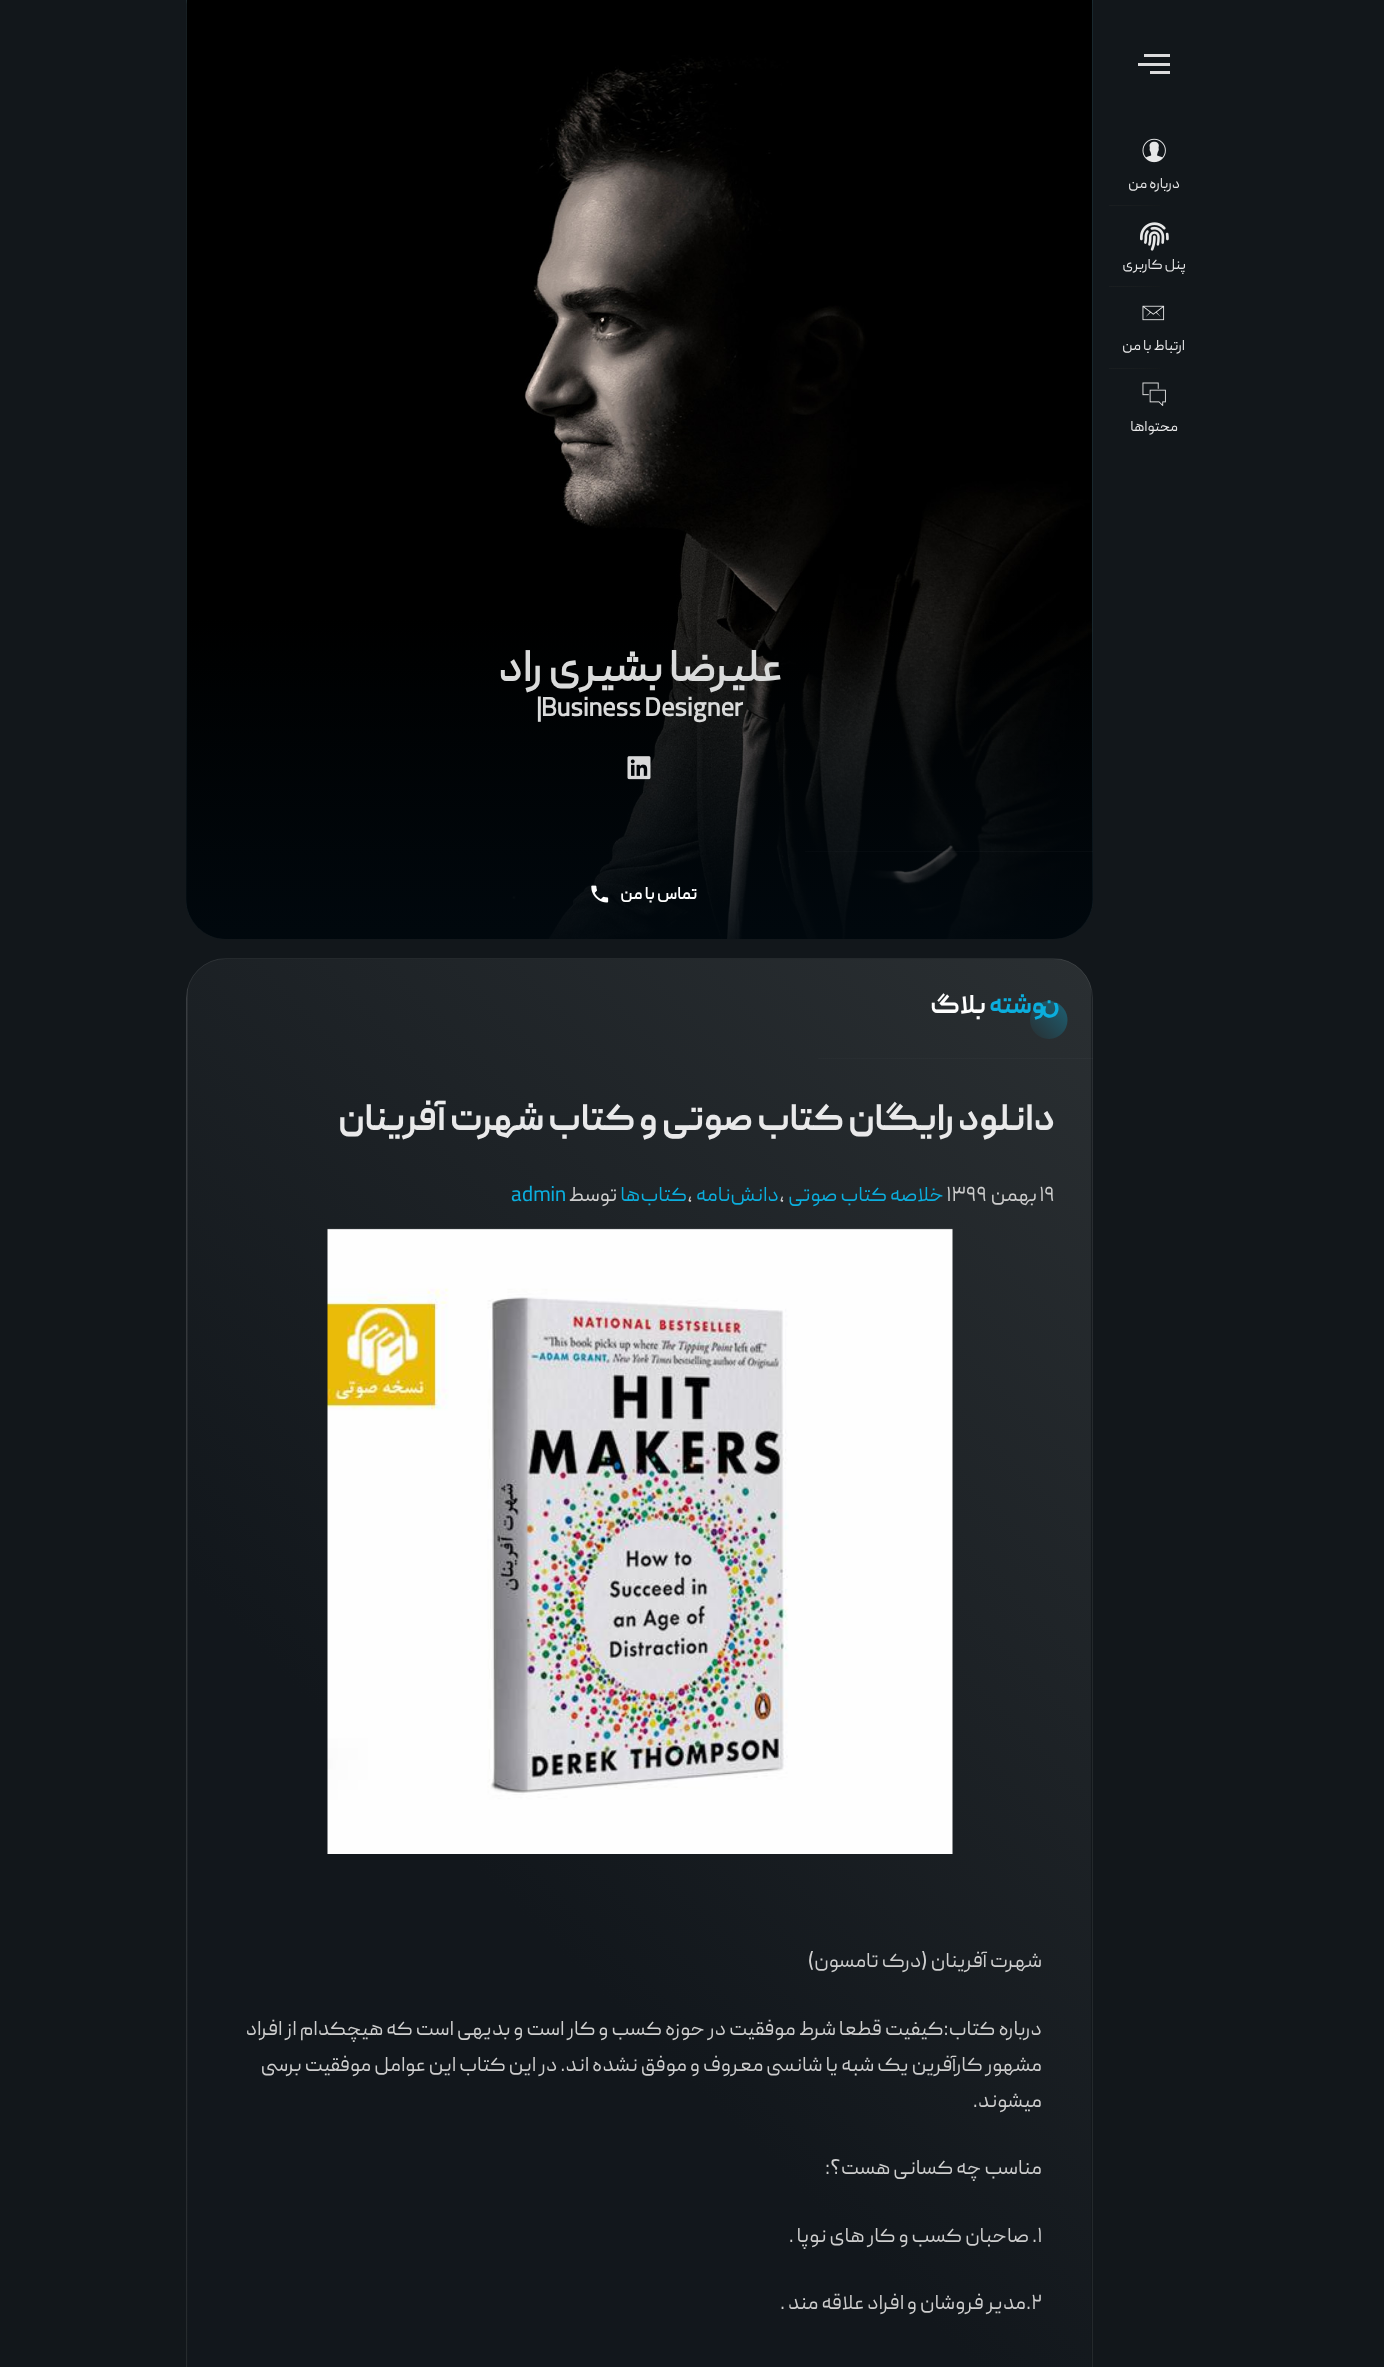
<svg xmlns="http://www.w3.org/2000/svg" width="1384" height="2367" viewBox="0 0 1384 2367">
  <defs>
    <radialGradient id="g1" gradientUnits="userSpaceOnUse" cx="0" cy="0" r="1" gradientTransform="matrix(127 0 0 0.9 1109 206)"><stop offset="0" stop-color="#2f3336"/><stop offset="0.7" stop-color="#14181a"/></radialGradient>
    <radialGradient id="g2" gradientUnits="userSpaceOnUse" cx="0" cy="0" r="1" gradientTransform="matrix(127 0 0 0.9 1109 287)"><stop offset="0" stop-color="#2f3336"/><stop offset="0.7" stop-color="#14181a"/></radialGradient>
    <radialGradient id="g3" gradientUnits="userSpaceOnUse" cx="0" cy="0" r="1" gradientTransform="matrix(127 0 0 0.9 1109 368)"><stop offset="0" stop-color="#2f3336"/><stop offset="0.7" stop-color="#14181a"/></radialGradient>
    <clipPath id="clip1"><rect x="186" y="-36" width="907" height="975" rx="40"/></clipPath>
    <linearGradient id="g4" gradientUnits="userSpaceOnUse" x1="-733" y1="920" x2="205" y2="-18"><stop offset="0.5" stop-color="#14181a"/><stop offset="1" stop-color="#2b2f31"/></linearGradient>
    <linearGradient id="g5" gradientUnits="userSpaceOnUse" x1="170" y1="920" x2="1108" y2="-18"><stop offset="0.5" stop-color="#14181a"/><stop offset="1" stop-color="#2b2f31"/></linearGradient>
    <linearGradient id="g6" gradientUnits="userSpaceOnUse" x1="170" y1="1893" x2="1108" y2="955"><stop offset="0.5" stop-color="#14181a"/><stop offset="1" stop-color="#2b2f31"/></linearGradient>
    <linearGradient id="g7" gradientUnits="userSpaceOnUse" x1="639" y1="617" x2="639" y2="939"><stop offset="0" stop-color="#01090f" stop-opacity="0"/><stop offset="1" stop-color="#01090f" stop-opacity="0.9"/></linearGradient>
    <radialGradient id="g8" gradientUnits="userSpaceOnUse" cx="0" cy="0" r="1" gradientTransform="matrix(1282 0 0 0.9 1093 852)"><stop offset="0" stop-color="#c5cad5" stop-opacity="0.15"/><stop offset="0.7" stop-color="#c5cad5" stop-opacity="0"/></radialGradient>
    <clipPath id="clip2"><rect x="186" y="958" width="907" height="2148" rx="40"/></clipPath>
    <linearGradient id="g9" gradientUnits="userSpaceOnUse" x1="-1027" y1="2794" x2="498" y2="1269"><stop offset="0.5" stop-color="#12171b"/><stop offset="1" stop-color="#2a2e32"/></linearGradient>
    <linearGradient id="g10" gradientUnits="userSpaceOnUse" x1="-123" y1="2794" x2="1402" y2="1269"><stop offset="0.5" stop-color="#12171c"/><stop offset="1" stop-color="#2a2f32"/></linearGradient>
    <linearGradient id="g11" gradientUnits="userSpaceOnUse" x1="781" y1="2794" x2="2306" y2="1269"><stop offset="0.5" stop-color="#12171b"/><stop offset="1" stop-color="#2a2e32"/></linearGradient>
    <linearGradient id="g12" gradientUnits="userSpaceOnUse" x1="1068" y1="1001" x2="1030" y2="1039"><stop offset="0" stop-color="#1d6175"/><stop offset="1" stop-color="#282f32"/></linearGradient>
    <radialGradient id="g13" gradientUnits="userSpaceOnUse" cx="0" cy="0" r="1" gradientTransform="matrix(1229 0 0 0.9 1093 1058)"><stop offset="0" stop-color="#c5cad5" stop-opacity="0.15"/><stop offset="0.7" stop-color="#c5cad5" stop-opacity="0"/></radialGradient>
  </defs>
  <rect width="100%" height="100%" fill="#12171b"/>
  <path d="M1138 63h32v3H1138z" fill="#dcdcdd"/>
  <path d="M1144 54h26v3H1144z" fill="#dcdcdd"/>
  <path d="M1150 71h20v3H1150z" fill="#dcdcdd"/>
  <image x="1142" y="138" width="24" height="25" href="img/1.png"/>
  <path d="M1109 205h51v1H1109z" fill="url(#g1)"/>
  <image x="1140" y="222" width="29" height="29" href="img/2.png"/>
  <path d="M1109 286h51v1H1109z" fill="url(#g2)"/>
  <image x="1142" y="305" width="23" height="16" href="img/3.png"/>
  <path d="M1109 368h51v1H1109z" fill="url(#g3)"/>
  <image x="1142" y="382" width="24" height="24" href="img/4.png"/>
  <g clip-path="url(#clip1)">
    <g clip-path="url(#clip1)">
      <path d="M186 0h2v911H186z" fill="url(#g4)"/>
      <path d="M188 909h903v29H188z" fill="url(#g5)"/>
      <path d="M218 938h843v1H218z" fill="url(#g6)"/>
    </g>
  </g>
  <rect x="186.5" y="-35.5" width="906" height="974" rx="39.5" fill="none" stroke="#ffffff14"/>
  <rect x="186" y="-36" width="907" height="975" rx="40" fill="#0baedd1a"/>
  <image x="186" y="0" width="907" height="939" href="img/5.png"/>
  <path d="M186 618H1093V899C1093 921 1075 939 1053 939H226C204 939 186 921 186 899Z" fill="url(#g7)"/>
  <image x="627" y="756" width="24" height="24" href="img/6.png"/>
  <path d="M805 851h288v1H805z" fill="url(#g8)"/>
  <image x="591" y="885" width="18" height="18" href="img/7.png"/>
  <g clip-path="url(#clip2)">
    <g clip-path="url(#clip2)">
      <path d="M186 986h2v1381H186z" fill="url(#g9)"/>
      <path d="M188 959h903v1408H188z" fill="url(#g10)"/>
      <path d="M1091 986h2v1381H1091z" fill="url(#g11)"/>
    </g>
  </g>
  <rect x="186.5" y="958.5" width="906" height="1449" rx="39.5" fill="none" stroke="#ffffff14"/>
  <path d="M1067.5 1020C1067.5 1030.5 1059 1039 1049 1039C1038.5 1039 1030 1030.5 1030 1020C1030 1009.5 1038.5 1001 1049 1001C1059 1001 1067.5 1009.5 1067.5 1020Z" fill="url(#g12)"/>
  <path d="M818 1058h275v1H818z" fill="url(#g13)"/>
  <image x="327" y="1228" width="626" height="626" href="img/8.png"/>
  <g font-family="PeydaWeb" font-size="15" direction="rtl" fill="#e9e9ea">
    <text x="1180" y="188">درباره من</text>
    <text x="1186" y="269">پنل کاربری</text>
    <text x="1185" y="350">ارتباط با من</text>
    <text x="1178" y="431">محتواها</text>
  </g>
  <text x="782" y="681" font-family="'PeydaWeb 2'" font-size="45" font-weight="bold" direction="rtl" fill="#dadbdb">علیرضا بشیری راد</text>
  <g font-family="'PeydaWeb 2'" font-size="26.25" font-weight="bold" fill="#dadbdb">
    <text x="541" y="716">Business Designer</text>
    <text x="536" y="716">|</text>
  </g>
  <text x="697" y="899" font-family="'PeydaWeb 2'" font-size="17.5" font-weight="bold" direction="rtl" fill="#fefefe">تماس با من</text>
  <text x="1060" y="1013" font-family="Noto Sans" font-size="26.25" font-weight="900" direction="rtl" fill="#0baedd">ن</text>
  <text x="1045" y="1013" font-family="PeydaWeb" font-size="26.25" font-weight="bold" direction="rtl" fill="#0baedd">وشته</text>
  <text x="986" y="1013" font-family="PeydaWeb" font-size="26.25" font-weight="bold" direction="rtl" fill="#fefefe">بلاگ</text>
  <text x="1055" y="1130" font-family="PeydaWeb" font-size="37.5" font-weight="bold" direction="rtl" fill="#e9e9ea">دانلود رایگان کتاب صوتی و کتاب شهرت آفرینان</text>
  <text x="1039" y="1201" font-family="PeydaWeb" font-size="21.25" fill="#cecece">۱۹</text>
  <text x="1037" y="1201" font-family="PeydaWeb" font-size="21.25" direction="rtl" fill="#cecece">بهمن</text>
  <text x="946" y="1201" font-family="PeydaWeb" font-size="21.25" fill="#cecece">۱۳۹۹</text>
  <text x="944" y="1201" font-family="PeydaWeb" font-size="21.25" direction="rtl" fill="#0baedd">خلاصه کتاب صوتی</text>
  <text x="779" y="1201" font-family="PeydaWeb" font-size="21.25" fill="#cecece">,</text>
  <text x="779" y="1201" font-family="PeydaWeb" font-size="21.25" direction="rtl" fill="#0baedd">دانش‌نامه</text>
  <text x="687" y="1201" font-family="PeydaWeb" font-size="21.25" fill="#cecece">,</text>
  <text x="687" y="1201" font-family="PeydaWeb" font-size="21.25" direction="rtl" fill="#0baedd">کتاب‌ها</text>
  <text x="617" y="1201" font-family="PeydaWeb" font-size="21.25" direction="rtl" fill="#cecece">توسط</text>
  <text x="511" y="1201" font-family="PeydaWeb" font-size="21.25" fill="#0baedd">admin</text>
  <g font-family="PeydaWeb" font-size="21.25" direction="rtl" fill="#cecece">
    <text x="1042" y="1967">شهرت آفرینان (درک تامسون)</text>
    <text x="1042" y="2035">درباره کتاب:کیفیت قطعا شرط موفقیت در حوزه کسب و کار است و بدیهی است که هیچکدام از افراد</text>
    <text x="1042" y="2071">مشهور کارآفرین یک شبه یا شانسی معروف و موفق نشده اند. در این کتاب این عوامل موفقیت برسی</text>
    <text x="1042" y="2107">میشوند.</text>
    <text x="1042" y="2174">مناسب چه کسانی هست؟:</text>
  </g>
  <text x="1037" y="2242" font-family="PeydaWeb" font-size="21.25" fill="#cecece">۱</text>
  <text x="1037" y="2242" font-family="PeydaWeb" font-size="21.25" direction="rtl" fill="#cecece">. صاحبان کسب و کار های نوپا .</text>
  <text x="1031" y="2309" font-family="PeydaWeb" font-size="21.25" fill="#cecece">۲</text>
  <text x="1031" y="2309" font-family="PeydaWeb" font-size="21.25" direction="rtl" fill="#cecece">.مدیر فروشان و افراد علاقه مند .</text>
</svg>
